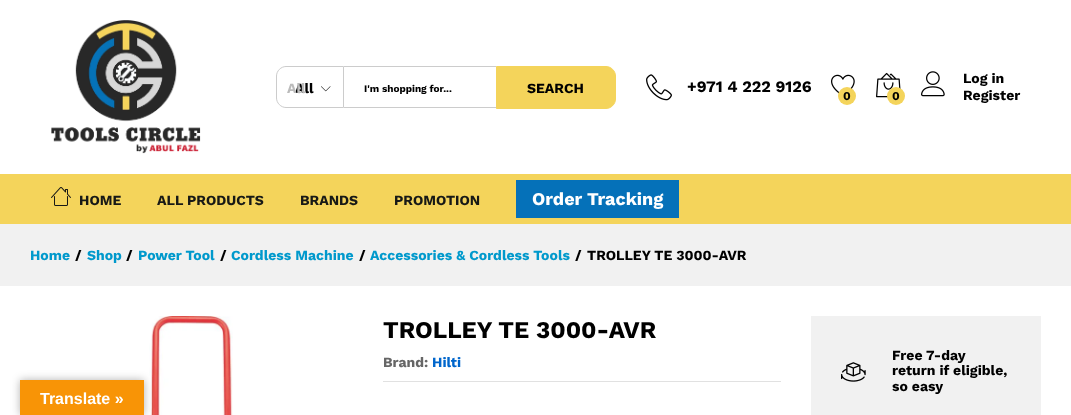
<svg xmlns="http://www.w3.org/2000/svg" width="1071" height="415" viewBox="0 0 1071 415">
  <defs>
    <clipPath id="clip1"><path d="M364 83h112v11H364z"/></clipPath>
  </defs>
  <rect width="100%" height="100%" fill="#fff"/>
  <image x="51" y="20" width="150" height="134" href="img/1.png"/>
  <path d="M286 66.5H343.5V107.5H286C281 107.5 276.5 103 276.5 98V76C276.5 71 281 66.5 286 66.5Z" fill="none" stroke="#ccc"/>
  <image x="321" y="86" width="10" height="6" href="img/2.png"/>
  <path d="M344 66h152v1H344z" fill="#ccc"/>
  <path d="M344 107h152v1H344z" fill="#ccc"/>
  <path d="M496.5 66.5H606C611 66.5 615.5 71 615.5 76V99C615.5 104 611 108.5 606 108.5H496.5Z" fill="#f4d45b" stroke="#f4d45b"/>
  <image x="646" y="74" width="26" height="27" href="img/3.png"/>
  <image x="921" y="71" width="24" height="26" href="img/4.png"/>
  <image x="831" y="74" width="24" height="20" href="img/5.png"/>
  <circle cx="847" cy="96" r="9" fill="#f4d45b"/>
  <image x="876" y="72" width="25" height="26" href="img/6.png"/>
  <circle cx="896" cy="96" r="9" fill="#f4d45b"/>
  <path d="M0 174h1071v50H0z" fill="#f4d45b"/>
  <image x="51" y="187" width="20" height="19" href="img/7.png"/>
  <path d="M516 180h163v38H516z" fill="#0571b9"/>
  <path d="M0 224h1071v62H0z" fill="#f1f1f1"/>
  <image x="149" y="316" width="84" height="99" href="img/8.png"/>
  <path d="M383 381h398v1H383z" fill="#e1e1e1"/>
  <path d="M811 316h230v99H811z" fill="#f1f1f1"/>
  <image x="841" y="362" width="25" height="20" href="img/9.png"/>
  <path d="M20 380h124v35H20z" fill="#0000004d" filter="blur(4.5px)"/>
  <path d="M20 380h124v35H20z" fill="#f89406"/>
  <text x="295" y="93" font-family="Work Sans" font-size="14" font-weight="bold" fill="#000">All</text>
  <text x="287" y="93" font-family="Work Sans" font-size="14" font-weight="bold" fill="#bbb">All</text>
  <g clip-path="url(#clip1)">
    <text x="364" y="92" font-family="Work Sans" font-size="10" font-weight="bold" fill="#000">I'm shopping for...</text>
  </g>
  <text x="527" y="93" font-family="Work Sans" font-size="14" font-weight="bold" fill="#000">SEARCH</text>
  <text x="687" y="92" font-family="Work Sans" font-size="16" font-weight="bold" fill="#000">+971 4 222 9126</text>
  <g font-family="Work Sans" font-size="14" font-weight="bold" fill="#000">
    <text x="963" y="83">Log in</text>
    <text x="963" y="100">Register</text>
  </g>
  <g font-family="Work Sans" font-size="12" font-weight="bold" fill="#000">
    <text x="843" y="100">0</text>
    <text x="892" y="100">0</text>
  </g>
  <g font-family="Work Sans" font-size="14" font-weight="bold" fill="#171916">
    <text x="79" y="205">HOME</text>
    <text x="157" y="205">ALL PRODUCTS</text>
    <text x="300" y="205">BRANDS</text>
    <text x="394" y="205">PROMOTION</text>
  </g>
  <text x="532" y="205" font-family="Work Sans" font-size="18" font-weight="bold" fill="#fff">Order Tracking</text>
  <text x="30" y="260" font-family="Work Sans" font-size="14" font-weight="bold" fill="#09c">Home</text>
  <text x="75" y="260" font-family="Work Sans" font-size="14" font-weight="bold" fill="#000">/</text>
  <text x="87" y="260" font-family="Work Sans" font-size="14" font-weight="bold" fill="#09c">Shop</text>
  <text x="126" y="260" font-family="Work Sans" font-size="14" font-weight="bold" fill="#000">/</text>
  <text x="138" y="260" font-family="Work Sans" font-size="14" font-weight="bold" fill="#09c">Power Tool</text>
  <text x="220" y="260" font-family="Work Sans" font-size="14" font-weight="bold" fill="#000">/</text>
  <text x="231" y="260" font-family="Work Sans" font-size="14" font-weight="bold" fill="#09c">Cordless Machine</text>
  <text x="359" y="260" font-family="Work Sans" font-size="14" font-weight="bold" fill="#000">/</text>
  <text x="370" y="260" font-family="Work Sans" font-size="14" font-weight="bold" fill="#09c">Accessories &amp; Cordless Tools</text>
  <g font-family="Work Sans" font-size="14" font-weight="bold" fill="#000">
    <text x="575" y="260">/</text>
    <text x="587" y="260">TROLLEY TE 3000-AVR</text>
  </g>
  <text x="383" y="338" font-family="Work Sans" font-size="24" font-weight="bold" fill="#000">TROLLEY TE 3000-AVR</text>
  <text x="383" y="367" font-family="Work Sans" font-size="14" font-weight="bold" fill="#666">Brand:</text>
  <text x="432" y="367" font-family="Work Sans" font-size="14" font-weight="bold" fill="#06c">Hilti</text>
  <g font-family="Work Sans" font-size="14" font-weight="bold" fill="#000">
    <text x="892" y="360">Free 7-day</text>
    <text x="892" y="375">return if eligible,</text>
    <text x="892" y="391">so easy</text>
  </g>
  <text x="40" y="404" font-family="Liberation Sans" font-size="16" font-weight="bold" fill="#fff">Translate »</text>
</svg>
